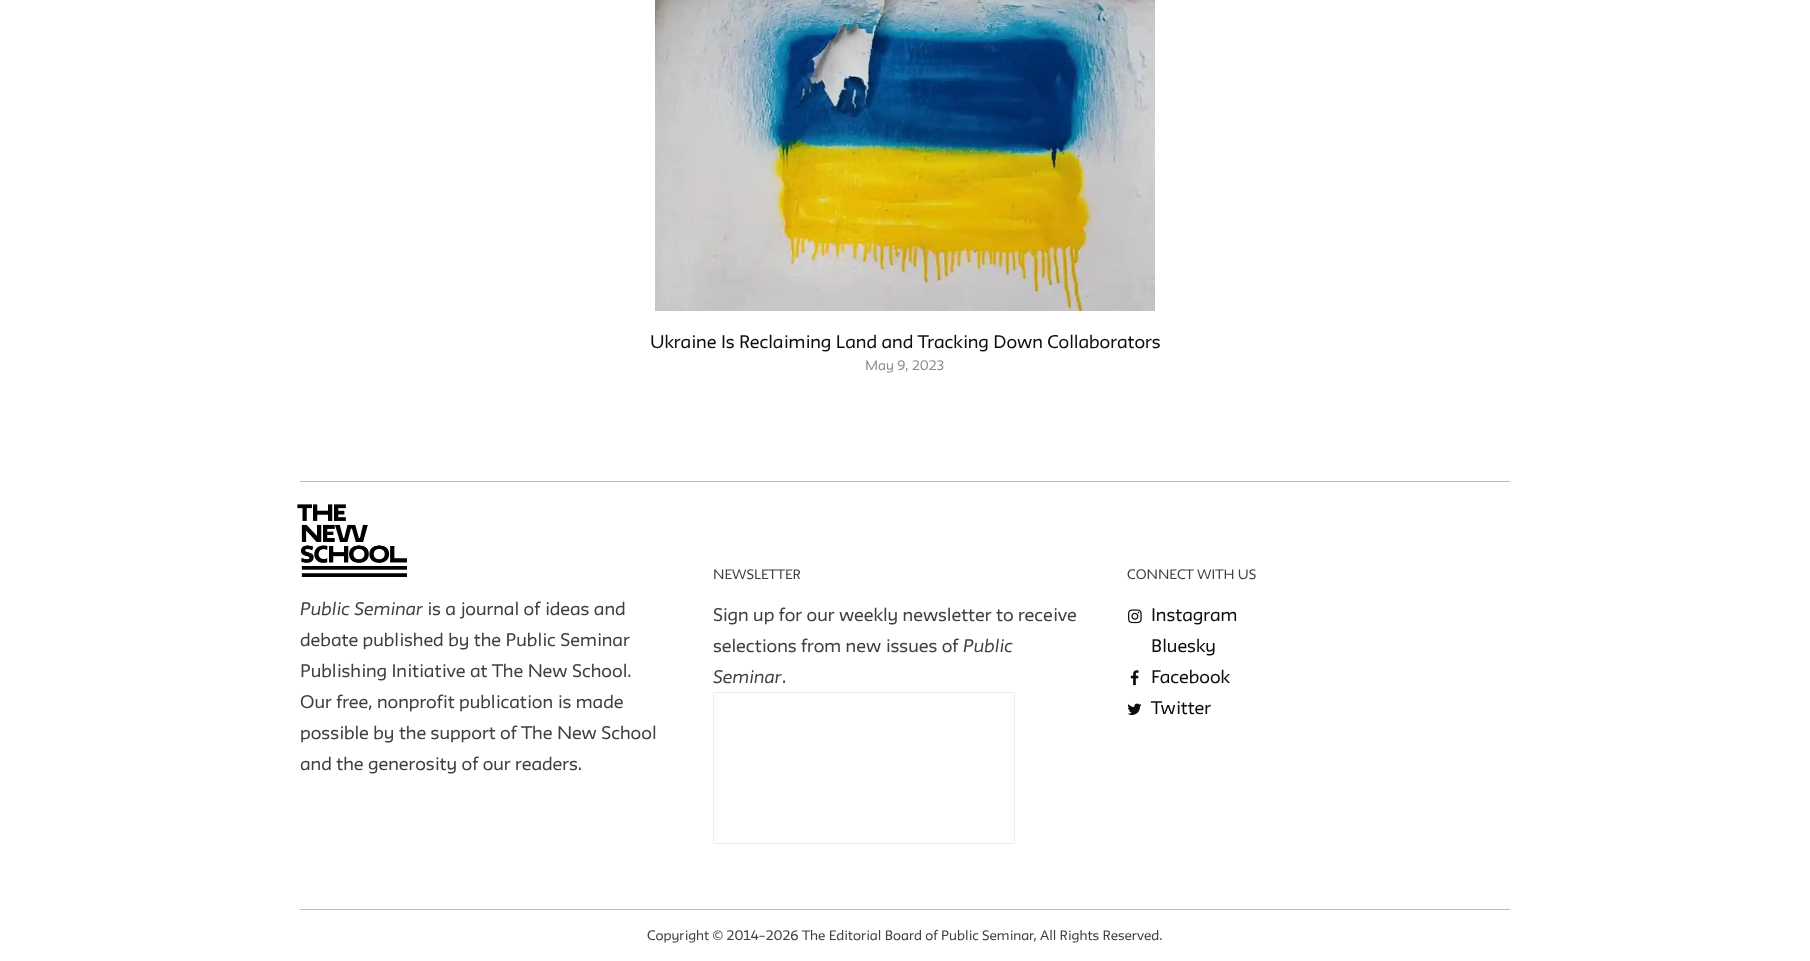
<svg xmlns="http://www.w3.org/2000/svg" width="1810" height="961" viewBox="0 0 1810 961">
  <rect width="100%" height="100%" fill="#fff"/>
  <image x="655" y="0" width="500" height="311" href="img/1.png"/>
  <path d="M300 481h1210v1H300z" fill="#bebebe"/>
  <image x="297" y="504" width="110" height="73" href="img/2.png"/>
  <path d="M713.5 692.5h301v151H713.5z" fill="none" stroke="#eee"/>
  <image x="1128" y="609" width="14" height="15" href="img/3.png"/>
  <image x="1130" y="670" width="9" height="16" href="img/4.png"/>
  <image x="1127" y="703" width="15" height="12" href="img/5.png"/>
  <path d="M300 909h1210v1H300z" fill="#bebebe"/>
  <text x="650" y="348" font-family="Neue" font-size="16" fill="#0d0d0d">Ukraine Is Reclaiming Land and Tracking Down Collaborators</text>
  <text x="865" y="370" font-family="Neue" font-size="12" fill="#8e8e8e">May 9, 2023</text>
  <text x="300" y="615" font-family="Neue" font-size="16" font-style="italic" fill="#404040">Public Seminar</text>
  <g font-family="Neue" font-size="16" fill="#404040">
    <text x="427" y="615">is a journal of ideas and</text>
    <text x="300" y="646">debate published by the Public Seminar</text>
    <text x="300" y="677">Publishing Initiative at The New School.</text>
    <text x="300" y="708">Our free, nonprofit publication is made</text>
    <text x="300" y="739">possible by the support of The New School</text>
    <text x="300" y="770">and the generosity of our readers.</text>
  </g>
  <text x="713" y="579" font-family="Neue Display" font-size="12" fill="#404040">NEWSLETTER</text>
  <g font-family="Neue" font-size="16" fill="#404040">
    <text x="713" y="621">Sign up for our weekly newsletter to receive</text>
    <text x="713" y="652">selections from new issues of</text>
  </g>
  <g font-family="Neue" font-size="16" font-style="italic" fill="#404040">
    <text x="963" y="652">Public</text>
    <text x="713" y="683">Seminar</text>
  </g>
  <text x="782" y="683" font-family="Neue" font-size="16" fill="#404040">.</text>
  <text x="1127" y="579" font-family="Neue Display" font-size="12" fill="#404040">CONNECT WITH US</text>
  <g font-family="Neue" font-size="16" fill="#0d0d0d">
    <text x="1151" y="621">Instagram</text>
    <text x="1151" y="652">Bluesky</text>
    <text x="1151" y="683">Facebook</text>
    <text x="1151" y="714">Twitter</text>
  </g>
  <text x="647" y="940" font-family="Neue" font-size="12" fill="#404040">Copyright © 2014–2026 The Editorial Board of Public Seminar, All Rights Reserved.</text>
</svg>
